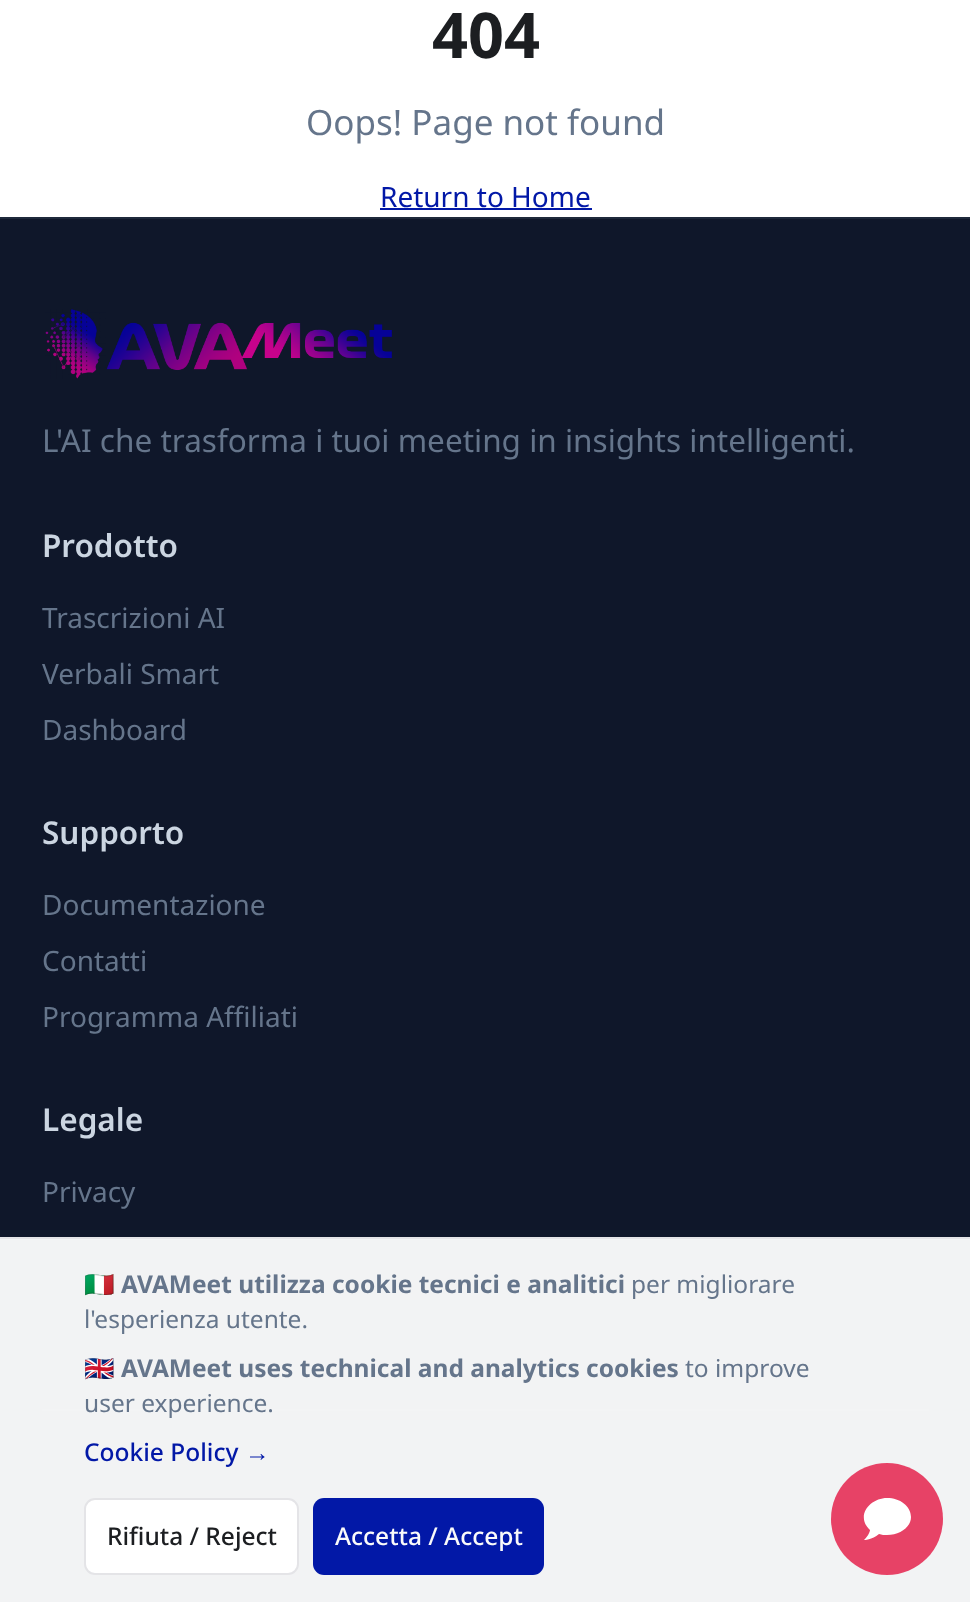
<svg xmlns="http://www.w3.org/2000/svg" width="970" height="1602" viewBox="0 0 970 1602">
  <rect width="100%" height="100%" fill="#fff"/>
  <path d="M380 208h212v2H380z" fill="#0218a7"/>
  <path d="M0 219h970v1383H0z" fill="#0f172a"/>
  <path d="M0 217h970v2H0z" fill="#1e293b"/>
  <image x="45" y="309" width="347" height="70" href="img/1.png"/>
  <path d="M42 1409h887v2H42z" fill="#1e293b"/>
  <path d="M0 1239h970v363H0z" fill="#fffffff2"/>
  <path d="M0 1237h970v2H0z" fill="#e4e4e7"/>
  <rect x="85" y="1499" width="213" height="75" rx="10" fill="#fff" stroke="#e4e4e7" stroke-width="2"/>
  <rect x="313" y="1498" width="231" height="77" rx="11" fill="#0218a7"/>
  <circle cx="887" cy="1519" r="56" fill="#e74266"/>
  <path d="M887 1498C900 1498 911 1506 911 1517C911 1527 900 1535 887 1535C884 1535 882 1535 879 1534C872 1540 864 1540 864 1540C869 1535 870 1531 870 1530C855 1516 870 1498 887 1498" fill="#fff"/>
  <text x="432" y="58" font-family="Noto Sans" font-size="63" font-weight="bold" fill="#1c1e21">404</text>
  <text x="306" y="135" font-family="Noto Sans" font-size="35" fill="#65758b">Oops! Page not found</text>
  <text x="380" y="207" font-family="Noto Sans" font-size="28" fill="#0218a7">Return to Home</text>
  <text x="42" y="452" font-family="Noto Sans" font-size="31.5" fill="#65758b">L'AI che trasforma i tuoi meeting in insights intelligenti.</text>
  <text x="42" y="557" font-family="Noto Sans" font-size="31.5" font-weight="600" fill="#cbd5e1">Prodotto</text>
  <g font-family="Noto Sans" font-size="28" fill="#65758b">
    <text x="42" y="628">Trascrizioni AI</text>
    <text x="42" y="684">Verbali Smart</text>
    <text x="42" y="740">Dashboard</text>
  </g>
  <text x="42" y="844" font-family="Noto Sans" font-size="31.5" font-weight="600" fill="#cbd5e1">Supporto</text>
  <g font-family="Noto Sans" font-size="28" fill="#65758b">
    <text x="42" y="915">Documentazione</text>
    <text x="42" y="971">Contatti</text>
    <text x="42" y="1027">Programma Affiliati</text>
  </g>
  <text x="42" y="1131" font-family="Noto Sans" font-size="31.5" font-weight="600" fill="#cbd5e1">Legale</text>
  <text x="42" y="1202" font-family="Noto Sans" font-size="28" fill="#65758b">Privacy</text>
  <text x="84" y="1293" font-family="Noto Color Emoji" font-size="24.5" fill="#65758b">🇮🇹</text>
  <text x="121" y="1293" font-family="Noto Sans" font-size="24.5" font-weight="bold" fill="#65758b">AVAMeet utilizza cookie tecnici e analitici</text>
  <g font-family="Noto Sans" font-size="24.5" fill="#65758b">
    <text x="631" y="1293">per migliorare</text>
    <text x="84" y="1328">l'esperienza utente.</text>
  </g>
  <text x="84" y="1377" font-family="Noto Color Emoji" font-size="24.5" fill="#65758b">🇬🇧</text>
  <text x="121" y="1377" font-family="Noto Sans" font-size="24.5" font-weight="bold" fill="#65758b">AVAMeet uses technical and analytics cookies</text>
  <g font-family="Noto Sans" font-size="24.5" fill="#65758b">
    <text x="685" y="1377">to improve</text>
    <text x="84" y="1412">user experience.</text>
  </g>
  <text x="84" y="1461" font-family="Noto Sans" font-size="24.5" font-weight="500" fill="#0218a7">Cookie Policy</text>
  <text x="245" y="1461" font-family="Liberation Sans" font-size="24.5" fill="#0218a7">→</text>
  <text x="107" y="1545" font-family="Noto Sans" font-size="24.5" font-weight="500" fill="#1c1e21">Rifiuta / Reject</text>
  <text x="335" y="1545" font-family="Noto Sans" font-size="24.5" font-weight="500" fill="#fafafa">Accetta / Accept</text>
</svg>
